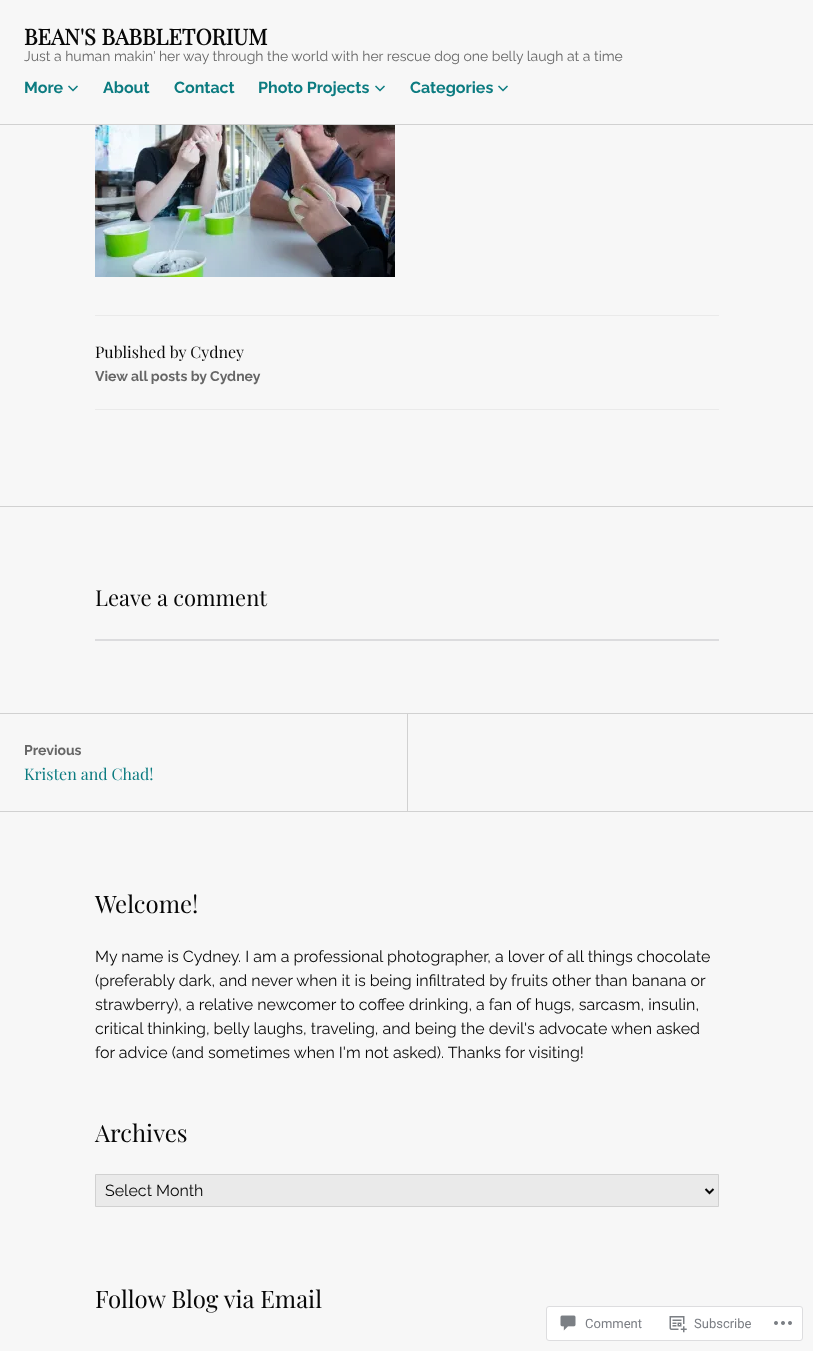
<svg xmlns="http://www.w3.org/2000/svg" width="813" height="1351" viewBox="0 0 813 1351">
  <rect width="100%" height="100%" fill="#f7f7f7"/>
  <path d="M0 124h813v1H0z" fill="#d1d1d1"/>
  <image x="68" y="85" width="10" height="7" href="img/1.png"/>
  <image x="375" y="85" width="10" height="7" href="img/1.png"/>
  <image x="498" y="85" width="10" height="7" href="img/1.png"/>
  <image x="95" y="125" width="300" height="152" href="img/2.png"/>
  <path d="M95 315h624v1H95z" fill="#eaeaea"/>
  <path d="M95 409h624v1H95z" fill="#eaeaea"/>
  <path d="M0 506h813v1H0z" fill="#d1d1d1"/>
  <path d="M95 639h624v2H95z" fill="#dcdcde"/>
  <path d="M0 713h813v1H0z" fill="#d1d1d1"/>
  <path d="M407 714h1v97H407z" fill="#d1d1d1"/>
  <path d="M0 811h813v1H0z" fill="#d1d1d1"/>
  <path d="M95.5 1174.5h623v32H95.5z" fill="#eaeaea" stroke="#d1d1d1"/>
  <path d="M705.5 1189L709.5 1193L713.5 1189" fill="none" stroke="#070707" stroke-width="2"/>
  <rect x="546.5" y="1306.5" width="256" height="34" rx="2.5" fill="#fff" stroke="#dddddf"/>
  <image x="560" y="1315" width="16" height="16" href="img/3.png"/>
  <image x="669" y="1316" width="18" height="17" href="img/4.png"/>
  <image x="774" y="1321" width="18" height="4" href="img/5.png"/>
  <text x="24" y="45" font-family="Playfair Display" font-size="22" font-weight="bold" fill="#070707">BEAN'S BABBLETORIUM</text>
  <text x="24" y="61" font-family="Raleway" font-size="14" fill="#666">Just a human makin' her way through the world with her rescue dog one belly laugh at a time</text>
  <g font-family="Raleway" font-size="16" font-weight="bold" fill="#0b7b80">
    <text x="24" y="93">More</text>
    <text x="103" y="93">About</text>
    <text x="174" y="93">Contact</text>
    <text x="258" y="93">Photo Projects</text>
    <text x="410" y="93">Categories</text>
  </g>
  <text x="95" y="358" font-family="Playfair Display" font-size="16" fill="#070707">Published by Cydney</text>
  <text x="95" y="381" font-family="Raleway" font-size="14" font-weight="bold" fill="#666">View all posts by Cydney</text>
  <text x="95" y="606" font-family="Playfair Display" font-size="22" fill="#070707">Leave a comment</text>
  <text x="24" y="755" font-family="Raleway" font-size="14" font-weight="bold" fill="#666">Previous</text>
  <text x="24" y="780" font-family="Playfair Display" font-size="16" fill="#0b7b80">Kristen and Chad!</text>
  <text x="95" y="913" font-family="Playfair Display" font-size="24" fill="#070707">Welcome!</text>
  <g font-family="Raleway" font-size="16" fill="#070707">
    <text x="95" y="962">My name is Cydney. I am a professional photographer, a lover of all things chocolate</text>
    <text x="95" y="986">(preferably dark, and never when it is being infiltrated by fruits other than banana or</text>
    <text x="95" y="1010">strawberry), a relative newcomer to coffee drinking, a fan of hugs, sarcasm, insulin,</text>
    <text x="95" y="1034">critical thinking, belly laughs, traveling, and being the devil's advocate when asked</text>
    <text x="95" y="1058">for advice (and sometimes when I'm not asked). Thanks for visiting!</text>
  </g>
  <text x="95" y="1142" font-family="Playfair Display" font-size="24" fill="#070707">Archives</text>
  <text x="105" y="1196" font-family="Raleway" font-size="16" fill="#070707">Select Month</text>
  <text x="95" y="1308" font-family="Playfair Display" font-size="24" fill="#070707">Follow Blog via Email</text>
  <g font-family="Roboto" font-size="13" fill="#7b7e84">
    <text x="585" y="1328">Comment</text>
    <text x="694" y="1328">Subscribe</text>
  </g>
</svg>
